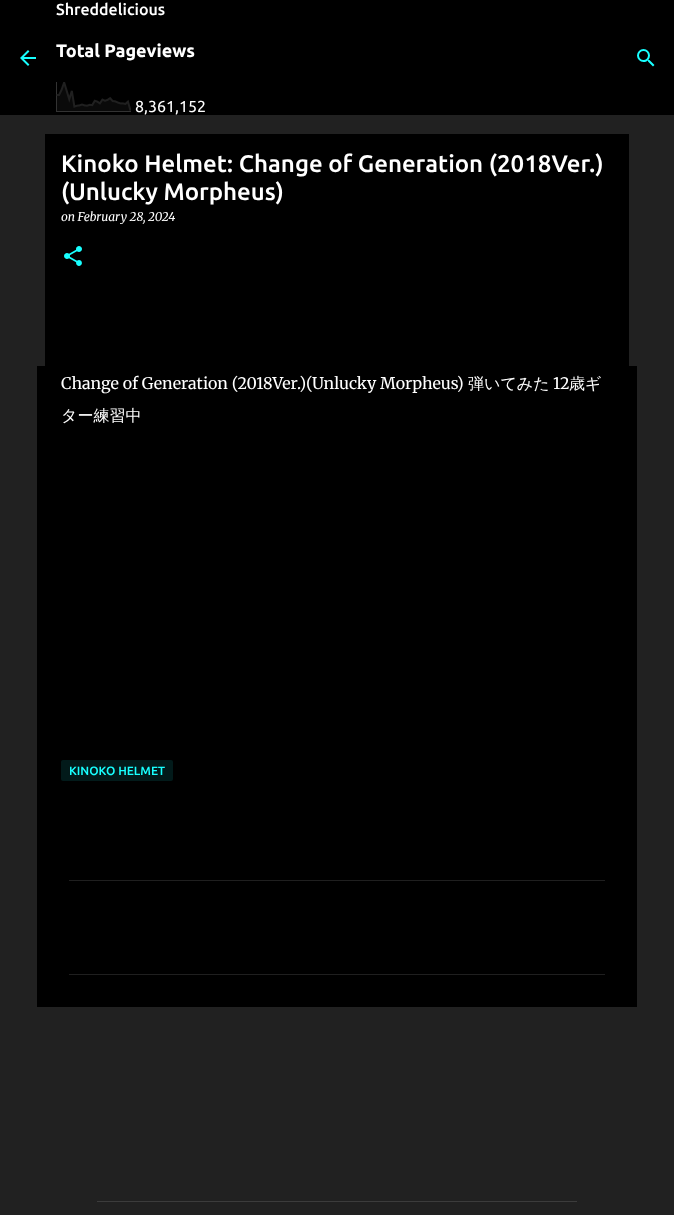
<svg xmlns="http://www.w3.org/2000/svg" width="674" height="1215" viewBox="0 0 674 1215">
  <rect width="100%" height="100%" fill="#212121"/>
  <path d="M0 0h674v115H0z" fill="#000"/>
  <image x="20" y="50" width="16" height="16" href="img/1.png"/>
  <image x="56" y="82" width="75" height="30" href="img/2.png"/>
  <image x="637" y="49" width="18" height="18" href="img/3.png"/>
  <path d="M37 366h600v641H37z" fill="#000"/>
  <path d="M45 134h584v232H45z" fill="#000"/>
  <image x="64" y="246" width="18" height="20" href="img/4.png"/>
  <rect x="61" y="760" width="112" height="21" rx="2" fill="#021a1a"/>
  <path d="M69 880h536v1H69z" fill="#1f1f1f"/>
  <path d="M69 974h536v1H69z" fill="#1f1f1f"/>
  <path d="M97 1201h480v1H97z" fill="#3c3c3c"/>
  <text x="56" y="15" font-family="Ubuntu" font-size="16" font-weight="500" fill="#fff">Shreddelicious</text>
  <text x="56" y="57" font-family="Ubuntu" font-size="18" font-weight="bold" fill="#fff">Total Pageviews</text>
  <text x="135" y="112" font-family="Ubuntu" font-size="16" fill="#fff">8,361,152</text>
  <g font-family="Ubuntu" font-size="24" font-weight="500" fill="#fff">
    <text x="61" y="172">Kinoko Helmet: Change of Generation (2018Ver.)</text>
    <text x="61" y="200">(Unlucky Morpheus)</text>
  </g>
  <text x="61" y="221" font-family="Merriweather" font-size="12" font-style="italic" fill="#fff">on February 28, 2024</text>
  <text x="61" y="389" font-family="Merriweather" font-size="16" font-weight="300" fill="#fff">Change of Generation (2018Ver.)(Unlucky Morpheus)</text>
  <text x="468" y="389" font-family="WenQuanYi Zen Hei" font-size="16" font-weight="500" fill="#fff">弾いてみた</text>
  <text x="553" y="389" font-family="Merriweather" font-size="16" font-weight="300" fill="#fff">12</text>
  <g font-family="WenQuanYi Zen Hei" font-size="16" font-weight="500" fill="#fff">
    <text x="569" y="389">歳ギ</text>
    <text x="61" y="421">ター練習中</text>
  </g>
  <text x="69" y="775" font-family="Ubuntu" font-size="12" font-weight="500" fill="#18ffff">KINOKO HELMET</text>
</svg>
